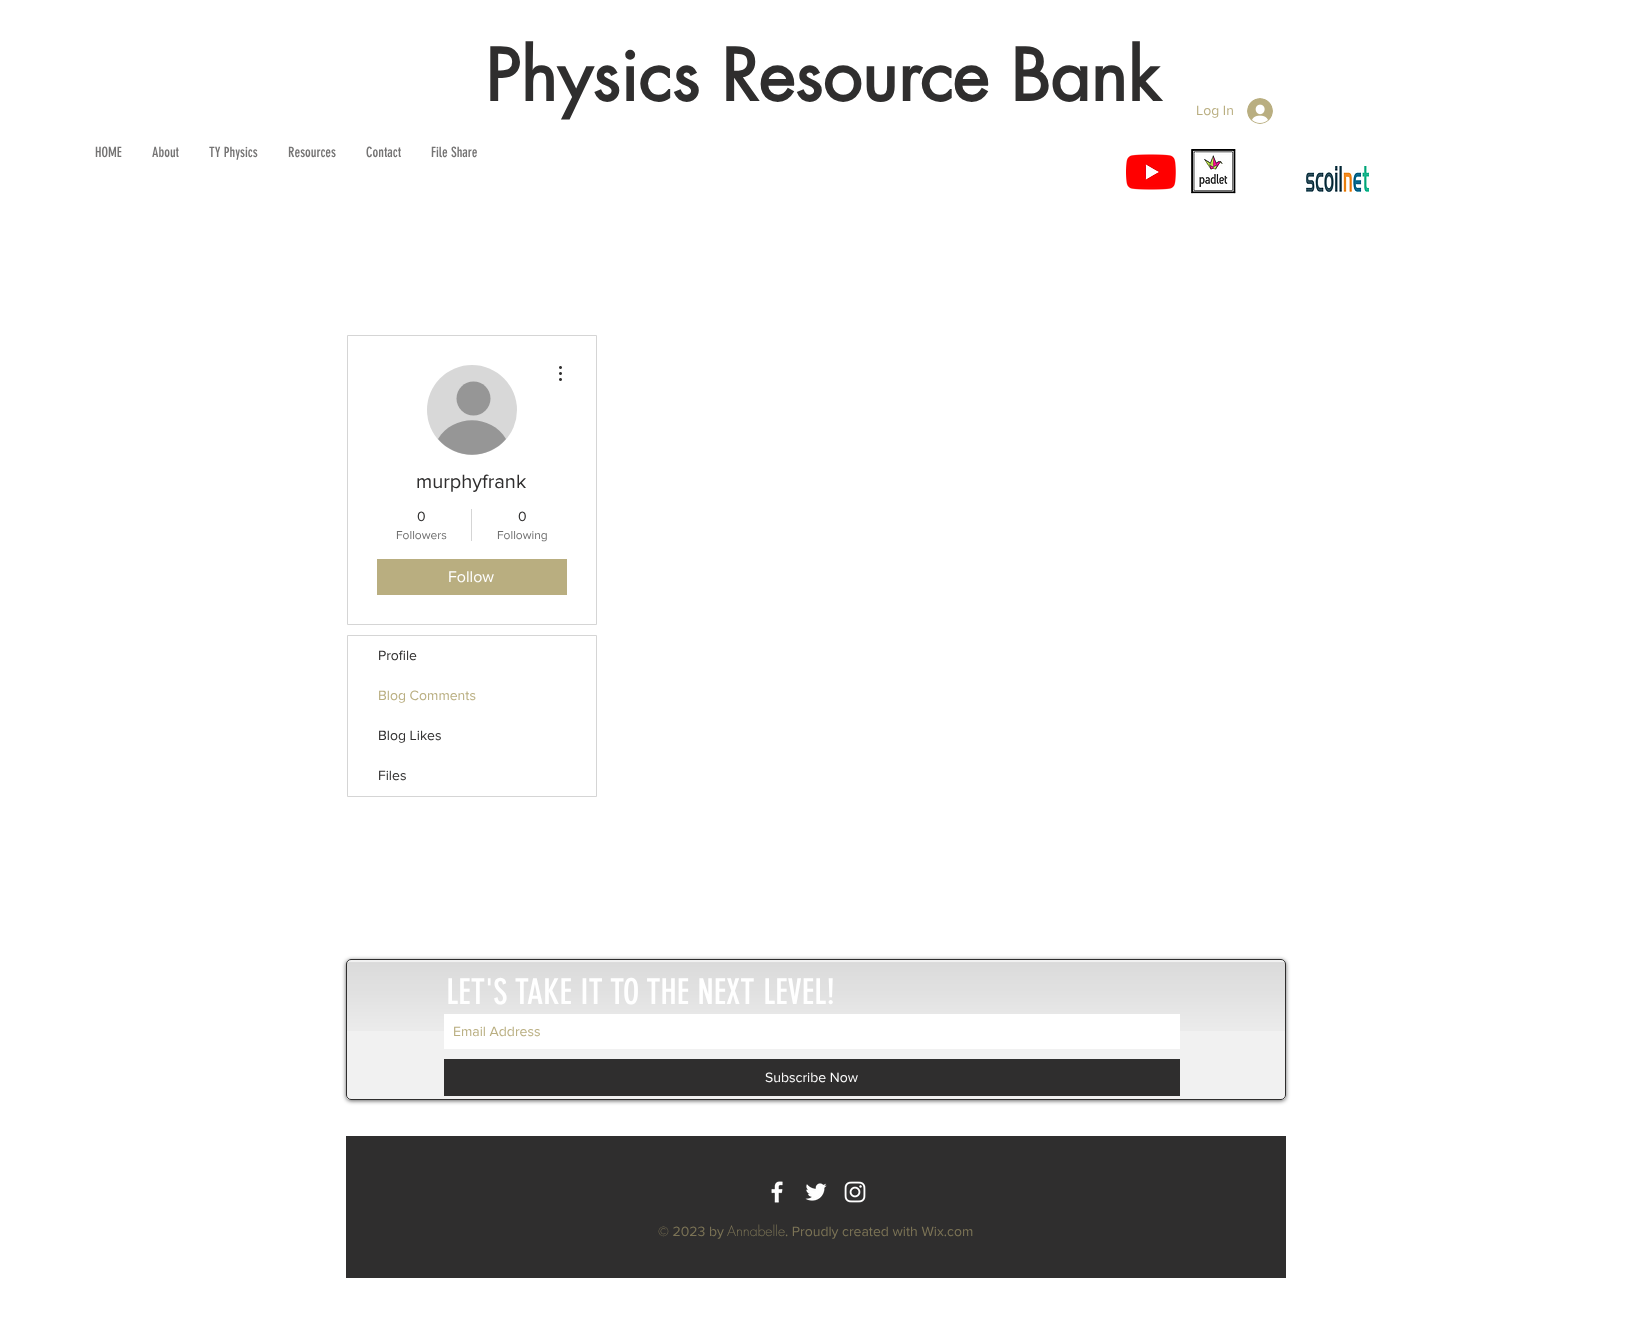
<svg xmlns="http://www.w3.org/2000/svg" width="1633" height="1329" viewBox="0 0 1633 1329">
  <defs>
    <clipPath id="clip1"><path d="M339 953H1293V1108H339ZM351 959H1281C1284 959 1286 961 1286 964V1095C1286 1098 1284 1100 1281 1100H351C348 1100 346 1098 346 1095V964C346 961 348 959 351 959Z" clip-rule="evenodd"/></clipPath>
  </defs>
  <rect width="100%" height="100%" fill="#fff"/>
  <image x="1247" y="98" width="26" height="26" href="img/1.png"/>
  <image x="1126" y="154" width="50" height="36" href="img/2.png"/>
  <image x="1191" y="149" width="45" height="45" href="img/3.png"/>
  <image x="1306" y="166" width="63" height="26" href="img/4.png"/>
  <path d="M347.5 335.5h249v289H347.5z" fill="none" stroke="#d5d5d5"/>
  <circle cx="472" cy="410" r="45" fill="#d8d8d8"/>
  <circle cx="473.5" cy="398.5" r="17" fill="#969696"/>
  <path d="M506 439C488 460 456 460 438 439C453 414 491 414 506 439Z" fill="#969696"/>
  <image x="559" y="366" width="3" height="15" href="img/5.png"/>
  <path d="M471 509h1v32H471z" fill="#d5d5d5"/>
  <path d="M377 559h190v36H377z" fill="#b9ae80"/>
  <path d="M347.5 635.5h249v161H347.5z" fill="none" stroke="#d5d5d5"/>
  <g clip-path="url(#clip1)">
    <rect x="346" y="960" width="940" height="141" rx="5" fill="#00000099" filter="blur(2px)"/>
  </g>
  <rect x="346" y="959" width="940" height="141" rx="5" fill="#dbdbdb61"/>
  <image x="346" y="962" width="940" height="69" href="img/6.png"/>
  <rect x="346.5" y="959.5" width="939" height="140" rx="4.5" fill="none" stroke="#2f2e2e"/>
  <path d="M444 1014h736v35H444z" fill="#fff"/>
  <path d="M444 1059h736v37H444z" fill="#2f2e2e"/>
  <path d="M346 1136h940v142H346z" fill="#2f2e2e"/>
  <image x="771" y="1181" width="12" height="22" href="img/7.png"/>
  <image x="805" y="1183" width="22" height="18" href="img/8.png"/>
  <image x="844" y="1181" width="22" height="22" href="img/9.png"/>
  <text x="485" y="101" font-family="futura" font-size="70" font-weight="bold" fill="#2f2e2e">Physics Resource Bank</text>
  <text x="1196" y="115" font-family="'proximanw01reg'" font-size="14" fill="#b9ae80">Log In</text>
  <g font-family="'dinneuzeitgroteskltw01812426'" font-size="14" fill="#757474">
    <text x="95" y="157">HOME</text>
    <text x="152" y="157">About</text>
    <text x="209" y="157">TY Physics</text>
    <text x="288" y="157">Resources</text>
    <text x="366" y="157">Contact</text>
    <text x="431" y="157">File Share</text>
  </g>
  <text x="416" y="488" font-family="'proximanw01reg'" font-size="20" fill="#2f2e2e">murphyfrank</text>
  <text x="417" y="521" font-family="'proximanw01reg'" font-size="14" fill="#2f2e2e">0</text>
  <text x="396" y="539" font-family="'proximanw01reg'" font-size="12" fill="#6d6d6d">Followers</text>
  <text x="518" y="521" font-family="'proximanw01reg'" font-size="14" fill="#2f2e2e">0</text>
  <text x="497" y="539" font-family="'proximanw01reg'" font-size="12" fill="#6d6d6d">Following</text>
  <text x="448" y="582" font-family="'proximanw01reg'" font-size="16" fill="#fff">Follow</text>
  <text x="378" y="660" font-family="'proximanw01reg'" font-size="14" fill="#2f2e2e">Profile</text>
  <text x="378" y="700" font-family="'proximanw01reg'" font-size="14" fill="#b9ae80">Blog Comments</text>
  <g font-family="'proximanw01reg'" font-size="14" fill="#2f2e2e">
    <text x="378" y="740">Blog Likes</text>
    <text x="378" y="780">Files</text>
  </g>
  <text x="446" y="1004" font-family="'dinneuzeitgroteskltw01812426'" font-size="35" fill="#fff">LET'S TAKE IT TO THE NEXT LEVEL!</text>
  <text x="453" y="1036" font-family="'proximanw01reg'" font-size="14" fill="#b9ae80">Email Address</text>
  <text x="765" y="1082" font-family="'proximanw01reg'" font-size="14" fill="#fff">Subscribe Now</text>
  <text x="658" y="1236" font-family="'proximanw01reg'" font-size="14" fill="#7c7456">© 2023 by</text>
  <text x="727" y="1236" font-family="futura" font-size="14" font-weight="300" fill="#7c7456">Annabelle</text>
  <text x="785" y="1236" font-family="'proximanw01reg'" font-size="14" fill="#7c7456">. Proudly created with Wix.com</text>
</svg>
